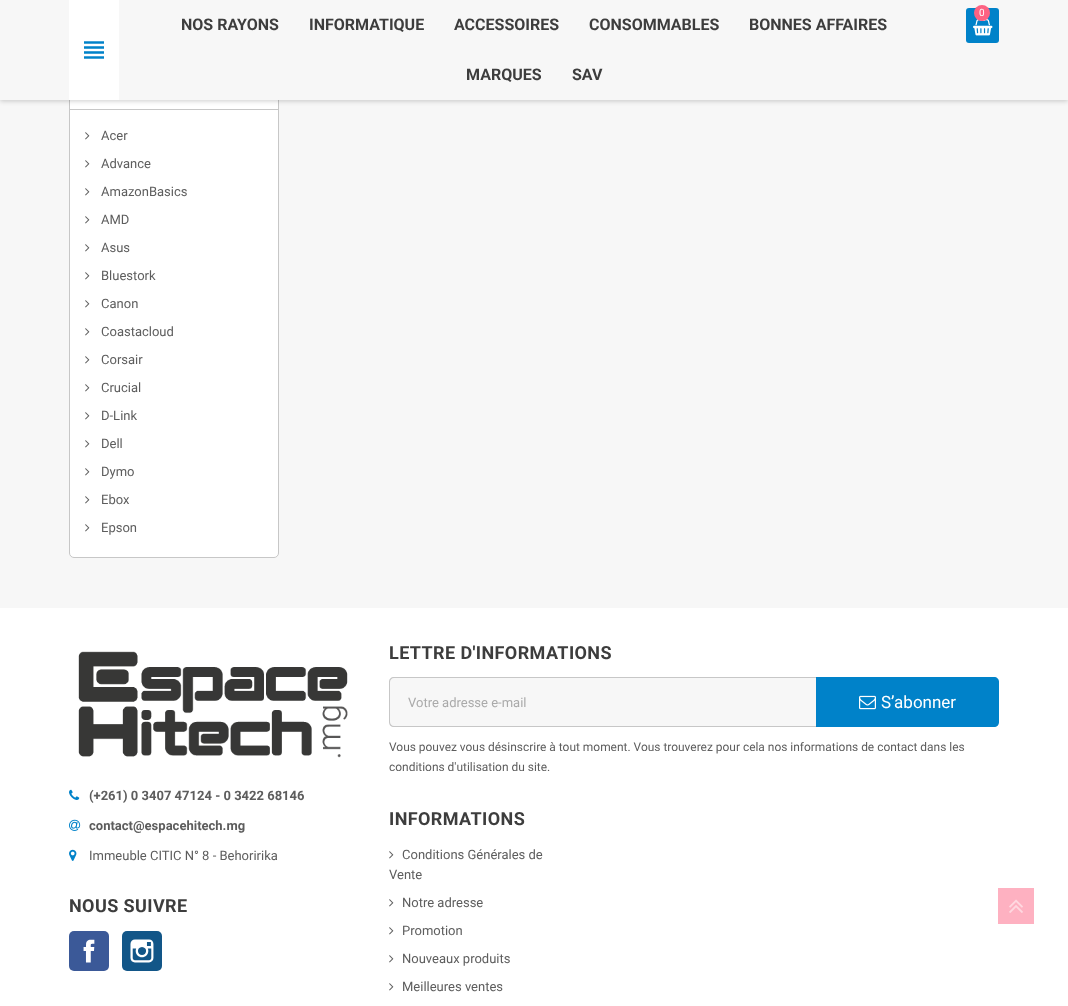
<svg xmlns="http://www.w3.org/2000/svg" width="1068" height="1006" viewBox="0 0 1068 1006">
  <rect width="100%" height="100%" fill="#fff"/>
  <path d="M0 100h1068v508H0z" fill="#f7f7f7"/>
  <rect x="69.5" y="62.5" width="209" height="495" rx="4.5" fill="#fff" stroke="#c7c7c7"/>
  <path d="M70 109h208v1H70z" fill="#c7c7c7"/>
  <path d="M0 1h1068v100H0z" fill="#00000033" filter="blur(2.5px)"/>
  <path d="M0 0h1068v100H0z" fill="#f7f7f7"/>
  <path d="M69 0h50v100H69z" fill="#fff"/>
  <image x="84" y="41" width="20" height="18" href="img/1.png"/>
  <rect x="966" y="8" width="33" height="35" rx="3" fill="#0082c9"/>
  <image x="973" y="19" width="20" height="17" href="img/2.png"/>
  <circle cx="982" cy="13" r="8" fill="#fd6282"/>
  <image x="85" y="132" width="5" height="8" href="img/3.png"/>
  <image x="85" y="160" width="5" height="8" href="img/3.png"/>
  <image x="85" y="188" width="5" height="8" href="img/3.png"/>
  <image x="85" y="216" width="5" height="8" href="img/3.png"/>
  <image x="85" y="244" width="5" height="8" href="img/3.png"/>
  <image x="85" y="272" width="5" height="8" href="img/3.png"/>
  <image x="85" y="300" width="5" height="8" href="img/3.png"/>
  <image x="85" y="328" width="5" height="8" href="img/3.png"/>
  <image x="85" y="356" width="5" height="8" href="img/3.png"/>
  <image x="85" y="384" width="5" height="8" href="img/3.png"/>
  <image x="85" y="412" width="5" height="8" href="img/3.png"/>
  <image x="85" y="440" width="5" height="8" href="img/3.png"/>
  <image x="85" y="468" width="5" height="8" href="img/3.png"/>
  <image x="85" y="496" width="5" height="8" href="img/3.png"/>
  <image x="85" y="524" width="5" height="8" href="img/3.png"/>
  <image x="78" y="651" width="270" height="107" href="img/4.png"/>
  <image x="69" y="789" width="11" height="11" href="img/5.png"/>
  <image x="69" y="819" width="12" height="12" href="img/6.png"/>
  <image x="69" y="849" width="8" height="12" href="img/7.png"/>
  <rect x="69" y="931" width="40" height="40" rx="5" fill="#3b5998"/>
  <image x="83" y="939" width="12" height="24" href="img/8.png"/>
  <rect x="122" y="931" width="40" height="40" rx="5" fill="#125688"/>
  <image x="130" y="939" width="24" height="24" href="img/9.png"/>
  <path d="M394 678H816V726H394C392 726 390 724 390 722V682C390 680 392 678 394 678Z" fill="#f7f7f7"/>
  <path d="M394 677H816V727H394C391 727 389 725 389 722V682C389 679 391 677 394 677ZM394 678H816V726H394C392 726 390 724 390 722V682C390 680 392 678 394 678Z" fill="#c7c7c7" fill-rule="evenodd"/>
  <path d="M816 677H994C997 677 999 679 999 682V722C999 725 997 727 994 727H816Z" fill="#0082c9"/>
  <image x="859" y="695" width="17" height="15" href="img/10.png"/>
  <image x="389" y="851" width="5" height="8" href="img/3.png"/>
  <image x="389" y="899" width="5" height="8" href="img/3.png"/>
  <image x="389" y="927" width="5" height="8" href="img/3.png"/>
  <image x="389" y="955" width="5" height="8" href="img/3.png"/>
  <image x="389" y="983" width="5" height="8" href="img/3.png"/>
  <path d="M998 888h36v36H998z" fill="#feb1c1"/>
  <image x="1009" y="899" width="14" height="14" href="img/11.png"/>
  <text x="979" y="16" font-family="Roboto" font-size="10" fill="#fff">0</text>
  <g font-family="'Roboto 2'" font-size="16" font-weight="bold" fill="#3d3d3d">
    <text x="181" y="30">NOS RAYONS</text>
    <text x="309" y="30">INFORMATIQUE</text>
    <text x="454" y="30">ACCESSOIRES</text>
    <text x="589" y="30">CONSOMMABLES</text>
    <text x="749" y="30">BONNES AFFAIRES</text>
    <text x="466" y="80">MARQUES</text>
    <text x="572" y="80">SAV</text>
  </g>
  <g font-family="Roboto" font-size="13" fill="#5d5d5d">
    <text x="101" y="140">Acer</text>
    <text x="101" y="168">Advance</text>
    <text x="101" y="196">AmazonBasics</text>
    <text x="101" y="224">AMD</text>
    <text x="101" y="252">Asus</text>
    <text x="101" y="280">Bluestork</text>
    <text x="101" y="308">Canon</text>
    <text x="101" y="336">Coastacloud</text>
    <text x="101" y="364">Corsair</text>
    <text x="101" y="392">Crucial</text>
    <text x="101" y="420">D-Link</text>
    <text x="101" y="448">Dell</text>
    <text x="101" y="476">Dymo</text>
    <text x="101" y="504">Ebox</text>
    <text x="101" y="532">Epson</text>
  </g>
  <g font-family="Roboto" font-size="13" font-weight="bold" fill="#5d5d5d">
    <text x="89" y="800">(+261) 0 3407 47124 - 0 3422 68146</text>
    <text x="89" y="830">contact@espacehitech.mg</text>
  </g>
  <text x="89" y="860" font-family="Roboto" font-size="13" fill="#5d5d5d">Immeuble CITIC N° 8 - Behoririka</text>
  <g font-family="'Roboto 2'" font-size="18" font-weight="bold" letter-spacing="0.4" fill="#3d3d3d">
    <text x="69" y="912">NOUS SUIVRE</text>
    <text x="389" y="659">LETTRE D'INFORMATIONS</text>
  </g>
  <text x="408" y="707" font-family="Roboto" font-size="13" fill="#aaa">Votre adresse e-mail</text>
  <text x="881" y="708" font-family="Roboto" font-size="17" fill="#fff">S’abonner</text>
  <g font-family="Roboto" font-size="11.95" fill="#5d5d5d">
    <text x="389" y="751">Vous pouvez vous désinscrire à tout moment. Vous trouverez pour cela nos informations de contact dans les</text>
    <text x="389" y="771">conditions d'utilisation du site.</text>
  </g>
  <text x="389" y="825" font-family="'Roboto 2'" font-size="18" font-weight="bold" letter-spacing="0.4" fill="#3d3d3d">INFORMATIONS</text>
  <g font-family="Roboto" font-size="13" fill="#5d5d5d">
    <text x="402" y="859">Conditions Générales de</text>
    <text x="389" y="879">Vente</text>
    <text x="402" y="907">Notre adresse</text>
    <text x="402" y="935">Promotion</text>
    <text x="402" y="963">Nouveaux produits</text>
    <text x="402" y="991">Meilleures ventes</text>
  </g>
</svg>
